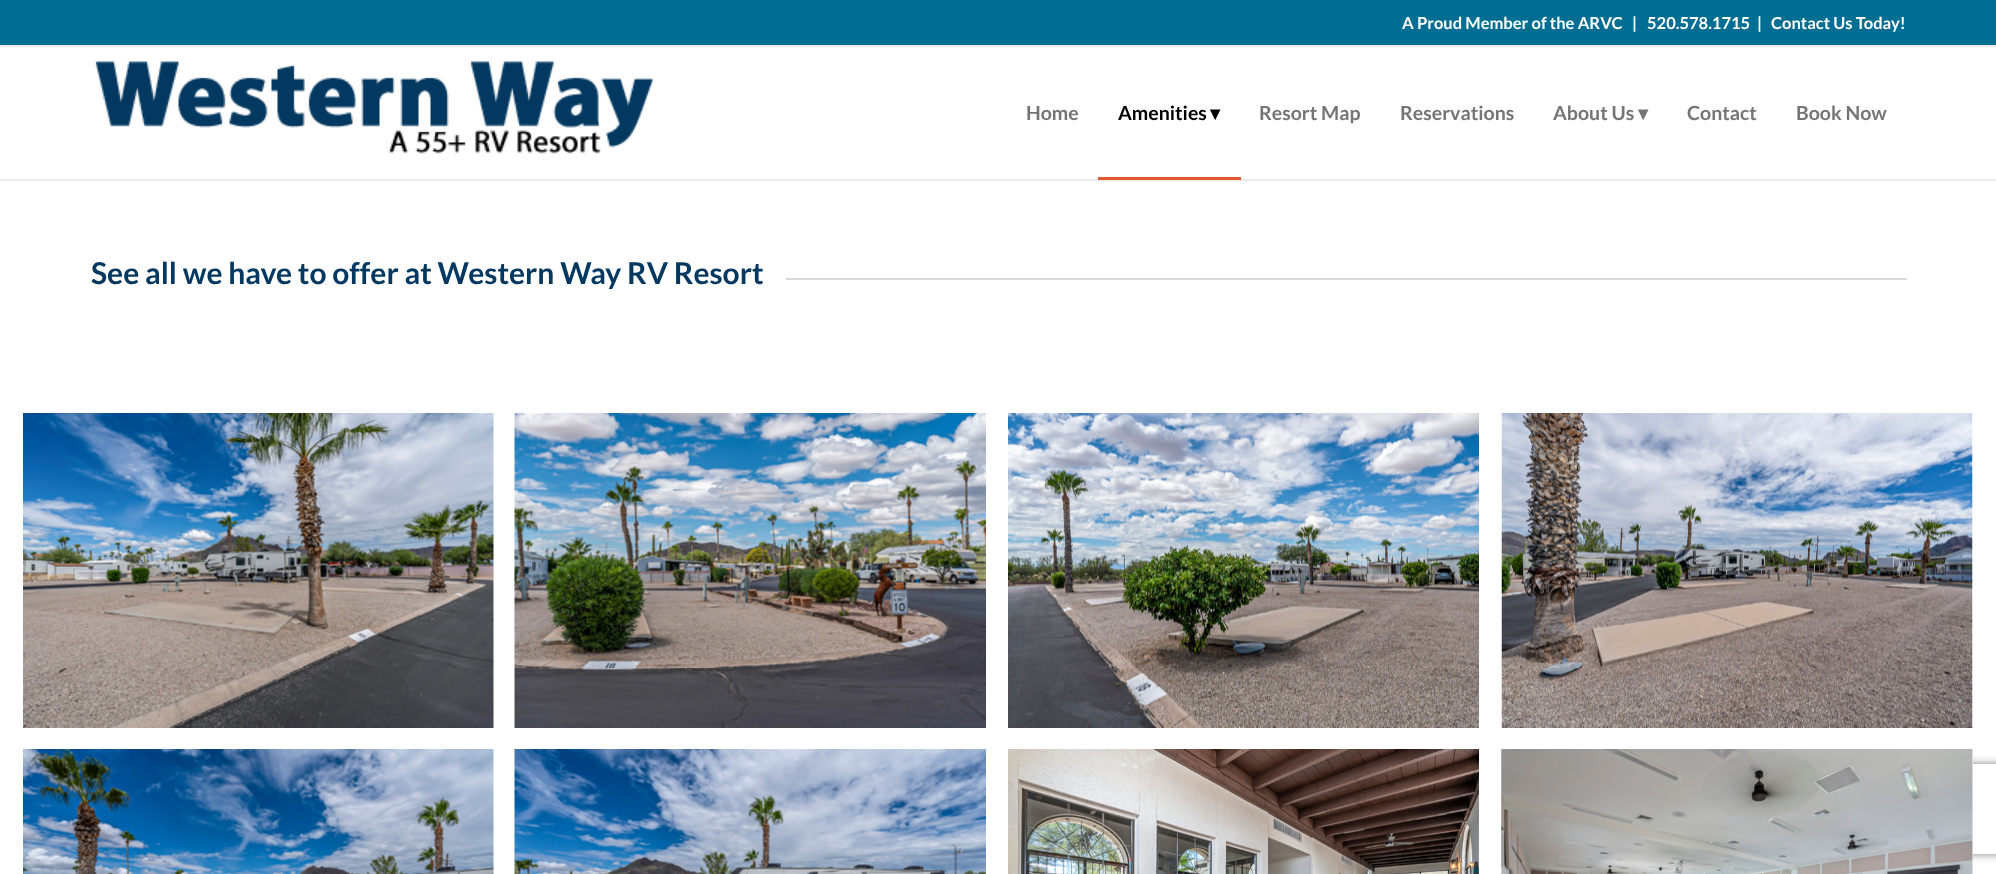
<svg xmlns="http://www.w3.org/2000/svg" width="1996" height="874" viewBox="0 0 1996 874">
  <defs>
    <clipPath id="clip1"><path d="M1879 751H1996V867H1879ZM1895 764H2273C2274.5 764 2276 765.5 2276 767V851C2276 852.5 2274.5 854 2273 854H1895C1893.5 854 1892 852.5 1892 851V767C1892 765.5 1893.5 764 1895 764Z" clip-rule="evenodd"/></clipPath>
  </defs>
  <rect width="100%" height="100%" fill="#fff"/>
  <path d="M0 0h1996v45H0z" fill="#006e92"/>
  <path d="M0 45h1996v2H0z" fill="#ebebeb"/>
  <path d="M0 179h1996v2H0z" fill="#ebebeb"/>
  <image x="95" y="61" width="558" height="93" href="img/1.png"/>
  <path d="M1098 177h143v3H1098z" fill="#e4582e"/>
  <path d="M786 278h1121v2H786z" fill="#d9d9d9"/>
  <image x="23" y="413" width="471" height="315" href="img/2.png"/>
  <image x="514" y="413" width="472" height="315" href="img/3.png"/>
  <image x="1008" y="413" width="471" height="315" href="img/4.png"/>
  <image x="1501" y="413" width="472" height="315" href="img/5.png"/>
  <image x="23" y="749" width="471" height="125" href="img/6.png"/>
  <image x="514" y="749" width="472" height="125" href="img/7.png"/>
  <image x="1008" y="749" width="471" height="125" href="img/8.png"/>
  <g clip-path="url(#clip1)">
    <rect x="1892" y="764" width="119" height="90" rx="3" fill="#808080" filter="blur(4px)"/>
  </g>
  <path d="M1972 749h1v113H1972z" fill="#fff"/>
  <image x="1501" y="749" width="472" height="125" href="img/9.png"/>
  <g font-family="Lato" font-size="16.5" font-weight="bold" fill="#fff">
    <text x="1402" y="29">A Proud Member of the ARVC</text>
    <text x="1632" y="29">|</text>
    <text x="1647" y="29">520.578.1715</text>
    <text x="1757" y="29">|</text>
    <text x="1771" y="29">Contact Us Today!</text>
  </g>
  <text x="1026" y="120" font-family="Lato" font-size="19.5" font-weight="bold" fill="#757575">Home</text>
  <text x="1118" y="120" font-family="Lato" font-size="19.5" font-weight="bold" fill="#000">Amenities</text>
  <text x="1210" y="120" font-family="DejaVu Sans" font-size="19.5" font-weight="bold" fill="#000">▾</text>
  <g font-family="Lato" font-size="19.5" font-weight="bold" fill="#757575">
    <text x="1259" y="120">Resort Map</text>
    <text x="1400" y="120">Reservations</text>
    <text x="1553" y="120">About Us</text>
  </g>
  <text x="1638" y="120" font-family="DejaVu Sans" font-size="19.5" font-weight="bold" fill="#757575">▾</text>
  <g font-family="Lato" font-size="19.5" font-weight="bold" fill="#757575">
    <text x="1687" y="120">Contact</text>
    <text x="1796" y="120">Book Now</text>
  </g>
  <text x="91" y="284" font-family="Lato" font-size="30" font-weight="bold" fill="#033860">See all we have to offer at Western Way RV Resort</text>
</svg>
